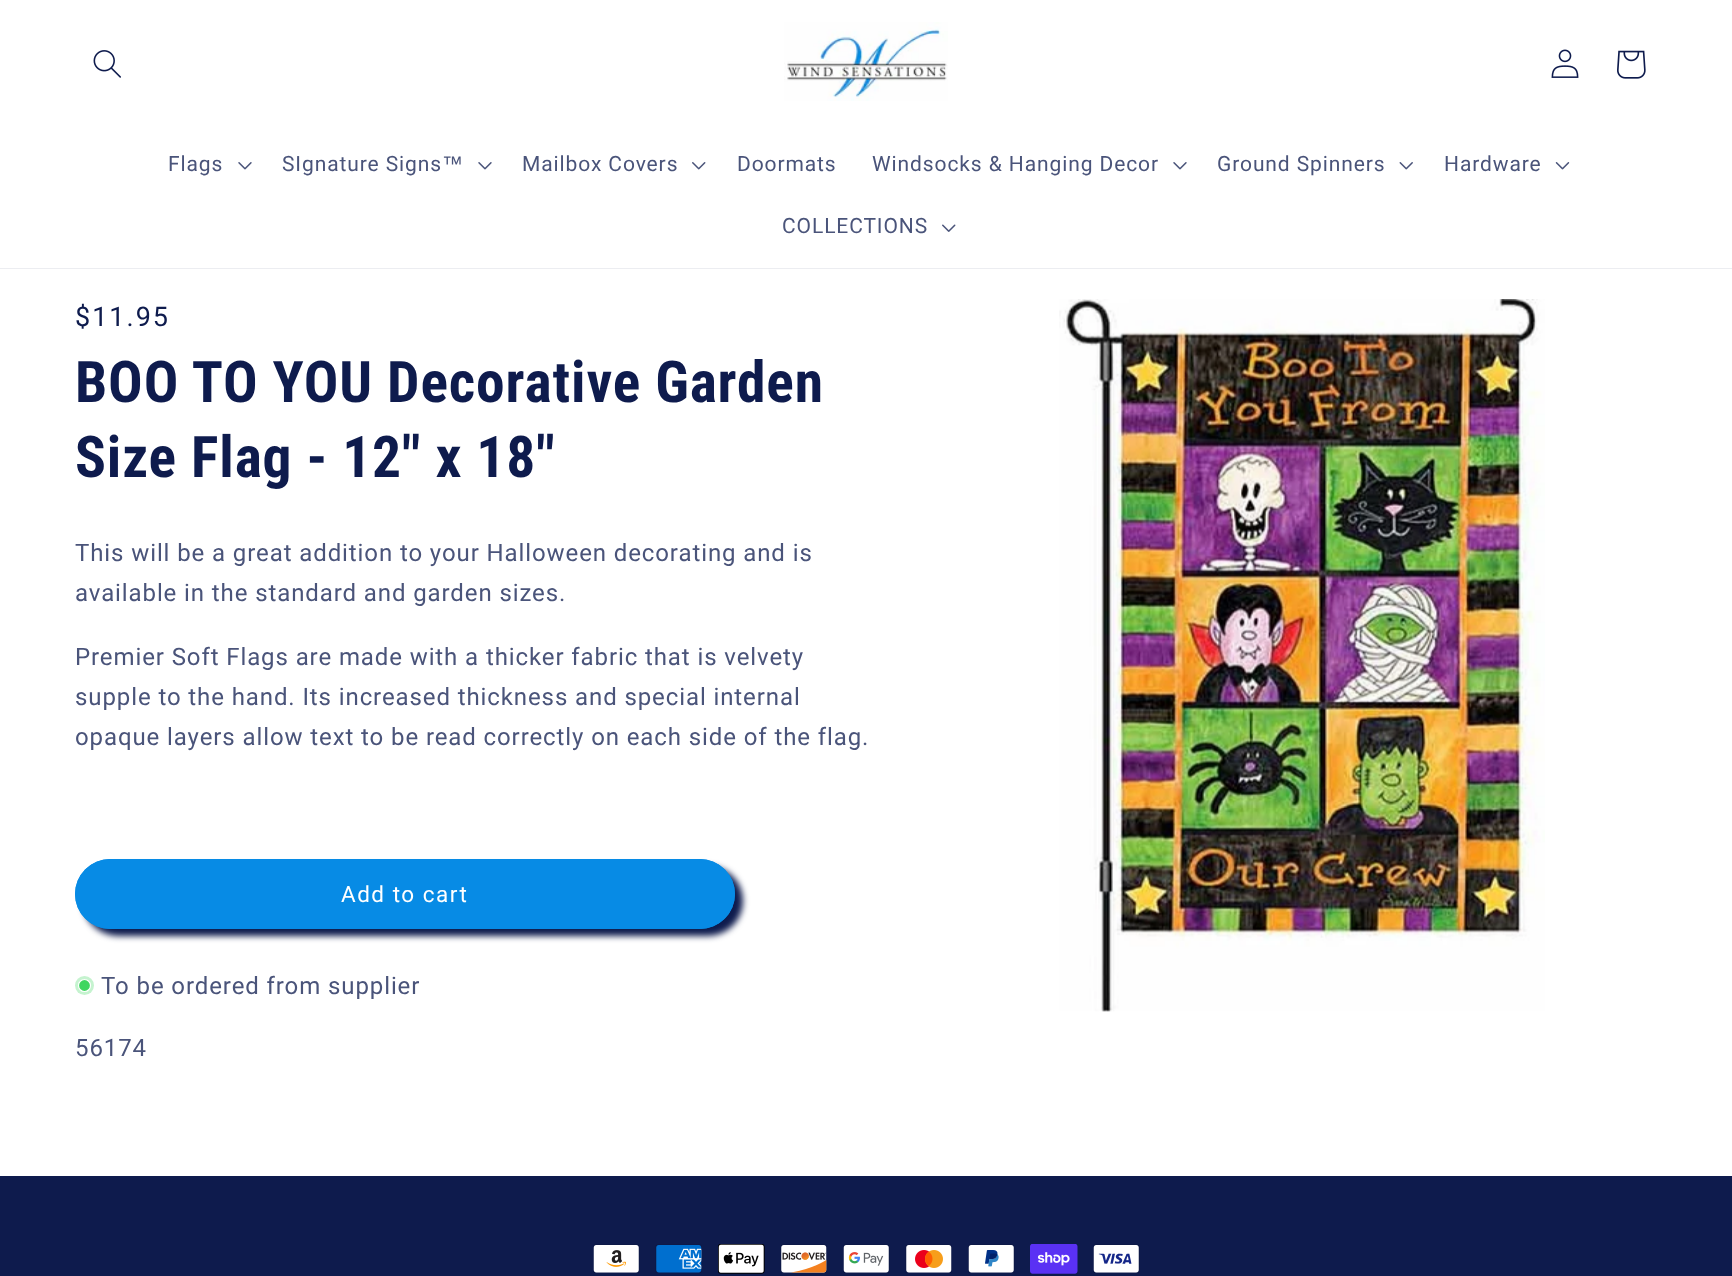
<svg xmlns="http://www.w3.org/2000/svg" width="1732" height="1276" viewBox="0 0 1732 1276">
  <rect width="100%" height="100%" fill="#fff"/>
  <path d="M0 268h1732v1H0z" fill="#ecedf1"/>
  <image x="93" y="50" width="28" height="28" href="img/1.png"/>
  <image x="784" y="22" width="164" height="79" href="img/2.png"/>
  <image x="1551" y="49" width="28" height="29" href="img/3.png"/>
  <image x="1617" y="50" width="29" height="29" href="img/4.png"/>
  <image x="238" y="162" width="14" height="8" href="img/5.png"/>
  <image x="478" y="162" width="14" height="8" href="img/5.png"/>
  <image x="692" y="162" width="14" height="8" href="img/6.png"/>
  <image x="1173" y="162" width="14" height="8" href="img/5.png"/>
  <image x="1399" y="162" width="14" height="8" href="img/7.png"/>
  <image x="1555" y="162" width="15" height="8" href="img/8.png"/>
  <image x="942" y="224" width="14" height="8" href="img/9.png"/>
  <rect x="83" y="866" width="660" height="70" rx="35" fill="#0e1b4d" filter="blur(3px)"/>
  <rect x="75" y="859" width="660" height="70" rx="35" fill="#078be5"/>
  <rect x="75.5" y="859.5" width="659" height="69" rx="34.5" fill="none" stroke="#078be5"/>
  <circle cx="84.5" cy="985.5" r="9.5" fill="#c5f3cf"/>
  <circle cx="84.5" cy="985.5" r="6" fill="#3ed660" stroke="#fff" stroke-width="1.2"/>
  <image x="1059" y="299" width="486" height="713" href="img/10.png"/>
  <path d="M0 1176h1732v100H0z" fill="#0e1b4d"/>
  <image x="593" y="1244" width="47" height="29" href="img/11.png"/>
  <image x="655" y="1244" width="47" height="29" href="img/12.png"/>
  <image x="718" y="1244" width="47" height="30" href="img/13.png"/>
  <image x="780" y="1244" width="47" height="29" href="img/14.png"/>
  <image x="843" y="1244" width="47" height="29" href="img/15.png"/>
  <image x="905" y="1244" width="47" height="29" href="img/16.png"/>
  <image x="968" y="1244" width="47" height="29" href="img/17.png"/>
  <image x="1030" y="1244" width="48" height="30" href="img/18.png"/>
  <image x="1093" y="1244" width="47" height="29" href="img/19.png"/>
  <g font-family="Roboto" font-size="21" letter-spacing="0.9" fill="#4a547a">
    <text x="168" y="171">Flags</text>
    <text x="282" y="171">SIgnature Signs</text>
  </g>
  <text x="442" y="171" font-family="Liberation Sans" font-size="21" letter-spacing="0.9" fill="#4a547a">™</text>
  <g font-family="Roboto" font-size="21" letter-spacing="0.9" fill="#4a547a">
    <text x="522" y="171">Mailbox Covers</text>
    <text x="737" y="171">Doormats</text>
    <text x="872" y="171">Windsocks &amp; Hanging Decor</text>
    <text x="1217" y="171">Ground Spinners</text>
    <text x="1444" y="171">Hardware</text>
    <text x="782" y="233">COLLECTIONS</text>
  </g>
  <text x="75" y="326" font-family="Roboto" font-size="27" letter-spacing="2" fill="#0e1b4d">$11.95</text>
  <g font-family="Roboto Condensed" font-size="57.5" font-weight="bold" letter-spacing="0.85" fill="#0e1b4d">
    <text x="75" y="402">BOO TO YOU Decorative Garden</text>
    <text x="75" y="477">Size Flag - 12" x 18"</text>
  </g>
  <g font-family="Roboto" font-size="24" letter-spacing="0.9" fill="#4a547a">
    <text x="75" y="561">This will be a great addition to your Halloween decorating and is</text>
    <text x="75" y="601">available in the standard and garden sizes.</text>
    <text x="75" y="665">Premier Soft Flags are made with a thicker fabric that is velvety</text>
    <text x="75" y="705">supple to the hand. Its increased thickness and special internal</text>
    <text x="75" y="745">opaque layers allow text to be read correctly on each side of the flag.</text>
  </g>
  <text x="341" y="902" font-family="Roboto" font-size="22.5" letter-spacing="1.5" fill="#fff">Add to cart</text>
  <g font-family="Roboto" font-size="24" letter-spacing="0.9" fill="#4a547a">
    <text x="101" y="994">To be ordered from supplier</text>
    <text x="75" y="1056">56174</text>
  </g>
</svg>
